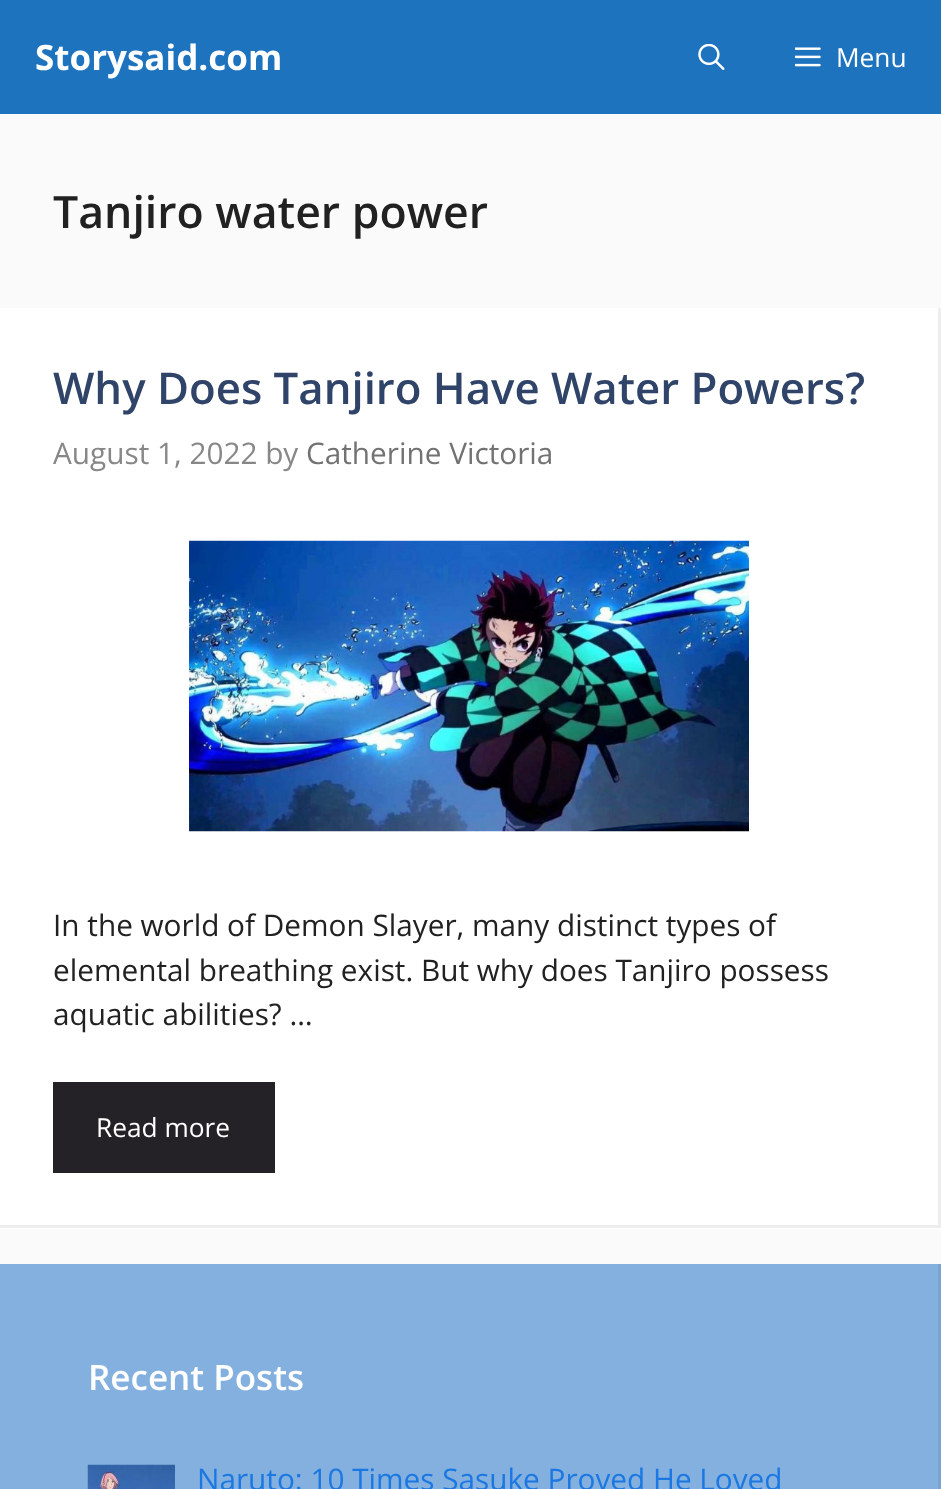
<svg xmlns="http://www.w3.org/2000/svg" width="941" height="1489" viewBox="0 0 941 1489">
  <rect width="100%" height="100%" fill="#fafafa"/>
  <path d="M0 0h941v114H0z" fill="#1e73be"/>
  <image x="698" y="44" width="27" height="26" href="img/1.png"/>
  <image x="795" y="47" width="26" height="20" href="img/2.png"/>
  <path d="M0 308h941v921H0z" fill="#fff"/>
  <path d="M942 308V1228L938 1225V308Z" fill="#ededed"/>
  <path d="M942 1228H0V1225H938Z" fill="#00000012"/>
  <image x="189" y="540" width="560" height="292" href="img/3.png"/>
  <path d="M53 1082h222v91H53z" fill="#242226"/>
  <path d="M0 1264h938v225H0z" fill="#83b0de"/>
  <path d="M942 1264V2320L938 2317V1264Z" fill="#7aa4ce"/>
  <image x="87" y="1464" width="88" height="25" href="img/4.png"/>
  <text x="35" y="70" font-family="Open Sans" font-size="35" font-weight="bold" fill="#fff">Storysaid.com</text>
  <text x="836" y="67" font-family="Open Sans" font-size="26.25" fill="#fff">Menu</text>
  <text x="53" y="228" font-family="Open Sans" font-size="44.6" font-weight="600" fill="#212121">Tanjiro water power</text>
  <text x="53" y="404" font-family="Open Sans" font-size="43.75" font-weight="600" fill="#2f4468">Why Does Tanjiro Have Water Powers?</text>
  <text x="53" y="464" font-family="Open Sans" font-size="29.75" fill="#878787">August 1, 2022 by</text>
  <text x="306" y="464" font-family="Open Sans" font-size="29.75" fill="#727272">Catherine Victoria</text>
  <g font-family="Open Sans" font-size="29.75" fill="#212121">
    <text x="53" y="936">In the world of Demon Slayer, many distinct types of</text>
    <text x="53" y="981">elemental breathing exist. But why does Tanjiro possess</text>
    <text x="53" y="1025">aquatic abilities? …</text>
  </g>
  <text x="96" y="1137" font-family="Open Sans" font-size="26.25" fill="#fff">Read more</text>
  <text x="88" y="1390" font-family="Open Sans" font-size="35" font-weight="600" fill="#fff">Recent Posts</text>
  <text x="197" y="1490" font-family="Open Sans" font-size="29.75" fill="#1b78e2">Naruto: 10 Times Sasuke Proved He Loved</text>
</svg>
